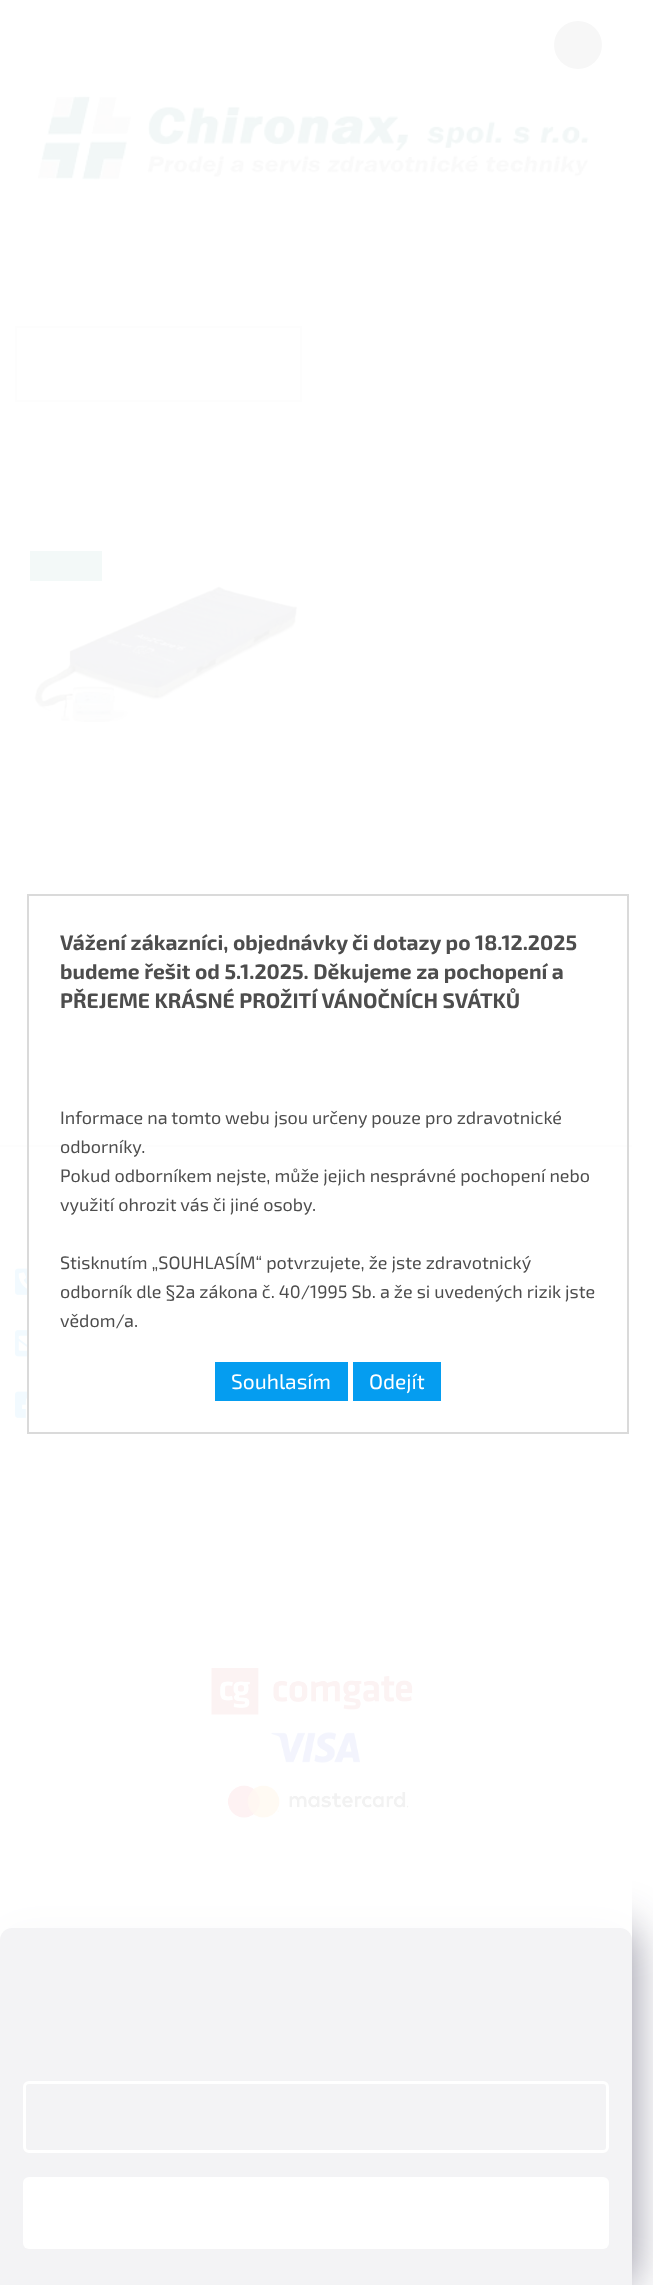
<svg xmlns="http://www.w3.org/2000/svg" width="653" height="2285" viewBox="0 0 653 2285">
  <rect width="100%" height="100%" fill="#fff"/>
  <circle cx="578" cy="45" r="24" fill="#666"/>
  <image x="37" y="93" width="553" height="88" href="img/1.png"/>
  <path d="M16 327h285v74H16z" fill="none" stroke="#dadada" stroke-width="2"/>
  <path d="M15 446h602v61H15z" fill="#f6f6f6"/>
  <path d="M15 447h123v60H15z" fill="#fff"/>
  <path d="M30 551h72v30H30z" fill="#168271"/>
  <image x="31" y="582" width="270" height="142" href="img/2.png"/>
  <path d="M0 1145h632v2H0z" fill="#dadada"/>
  <image x="15" y="1268" width="12" height="27" href="img/3.png"/>
  <image x="15" y="1330" width="12" height="27" href="img/4.png"/>
  <image x="15" y="1391" width="12" height="27" href="img/5.png"/>
  <image x="211" y="1668" width="202" height="47" href="img/6.png"/>
  <image x="271" y="1732" width="89" height="31" href="img/7.png"/>
  <image x="227" y="1785" width="182" height="33" href="img/8.png"/>
  <rect y="1928" width="632" height="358" rx="12" fill="#1b193980" filter="blur(22.5px)"/>
  <path d="M12 1928H620C626.5 1928 632 1933.5 632 1940V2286H0V1940C0 1933.5 5.5 1928 12 1928Z" fill="#1a1937"/>
  <rect x="24.5" y="2082.5" width="583" height="69" rx="4.5" fill="none" stroke="#f8fafb" stroke-width="3"/>
  <rect x="23" y="2177" width="586" height="72" rx="6" fill="#f8fafb"/>
  <path d="M0 21h632v2264H0z" fill="#fffffff2"/>
  <path d="M28 895h600v538H28z" fill="none" stroke="#dadada" stroke-width="2"/>
  <path d="M215 1362h133v39H215z" fill="#059df0"/>
  <path d="M353 1362h88v39H353z" fill="#059df0"/>
  <g font-family="'Exo 2'" font-size="21" font-weight="bold" fill="#4d4d4d">
    <text x="60" y="950">Vážení zákazníci, objednávky či dotazy po 18.12.2025</text>
    <text x="60" y="979">budeme řešit od 5.1.2025. Děkujeme za pochopení a</text>
    <text x="60" y="1008">PŘEJEME KRÁSNÉ PROŽITÍ VÁNOČNÍCH SVÁTKŮ</text>
  </g>
  <g font-family="'Exo 2'" font-size="18" fill="#4d4d4d">
    <text x="60" y="1124">Informace na tomto webu jsou určeny pouze pro zdravotnické</text>
    <text x="60" y="1153">odborníky.</text>
    <text x="60" y="1182">Pokud odborníkem nejste, může jejich nesprávné pochopení nebo</text>
    <text x="60" y="1211">využití ohrozit vás či jiné osoby.</text>
    <text x="60" y="1269">Stisknutím „SOUHLASÍM“ potvrzujete, že jste zdravotnický</text>
    <text x="60" y="1298">odborník dle §2a zákona č. 40/1995 Sb. a že si uvedených rizik jste</text>
    <text x="60" y="1327">vědom/a.</text>
  </g>
  <g font-family="'Exo 2'" font-size="21" fill="#fff">
    <text x="231" y="1389">Souhlasím</text>
    <text x="369" y="1389">Odejít</text>
  </g>
</svg>
